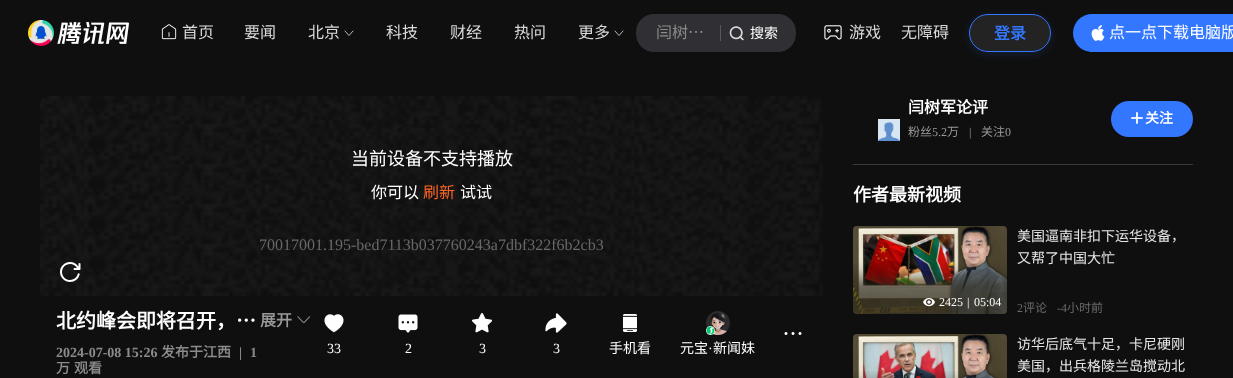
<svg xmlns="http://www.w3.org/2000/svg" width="1233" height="378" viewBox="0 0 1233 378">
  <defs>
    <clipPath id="clip1"><path d="M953 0H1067V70H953ZM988 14H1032C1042.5 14 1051 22.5 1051 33C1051 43.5 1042.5 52 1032 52H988C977.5 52 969 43.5 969 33C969 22.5 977.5 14 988 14Z" clip-rule="evenodd"/></clipPath>
    <linearGradient id="g1" gradientUnits="userSpaceOnUse" x1="930" y1="314" x2="930" y2="226"><stop offset="0.3" stop-color="#000" stop-opacity="0.3"/><stop offset="0.6" stop-color="#000" stop-opacity="0"/></linearGradient>
    <linearGradient id="g2" gradientUnits="userSpaceOnUse" x1="930" y1="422" x2="930" y2="334"><stop offset="0.3" stop-color="#000" stop-opacity="0.3"/><stop offset="0.6" stop-color="#000" stop-opacity="0"/></linearGradient>
  </defs>
  <rect width="100%" height="100%" fill="#0f0f0f"/>
  <image x="28" y="20" width="101" height="26" href="img/1.png"/>
  <image x="161" y="24" width="16" height="16" href="img/2.png"/>
  <path d="M353 31L349 35.5L345 31" fill="none" stroke="#fff" stroke-width="0.7" stroke-linecap="round" stroke-linejoin="round"/>
  <path d="M623 31L619 35.5L615 31" fill="none" stroke="#fff" stroke-width="0.7" stroke-linecap="round" stroke-linejoin="round"/>
  <rect x="636" y="14" width="160" height="38" rx="18" fill="#2f2f34"/>
  <path d="M720 25h1v16H720z" fill="#59595d"/>
  <image x="729" y="26" width="15" height="15" href="img/3.png"/>
  <image x="824" y="25" width="18" height="15" href="img/4.png"/>
  <g clip-path="url(#clip1)">
    <rect x="969" y="16" width="82" height="38" rx="19" fill="#3377ff29" filter="blur(5px)"/>
  </g>
  <rect x="969.5" y="14.5" width="81" height="37" rx="18.5" fill="#d9d9d91a" stroke="#37f"/>
  <rect x="1073" y="14" width="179" height="38" rx="19" fill="#37f"/>
  <image x="1091" y="25" width="14" height="16" href="img/5.png"/>
  <image x="40" y="96" width="783" height="200" href="img/6.png"/>
  <image x="297" y="316" width="13" height="7" href="img/7.png"/>
  <image x="784" y="332" width="18" height="3" href="img/8.png"/>
  <image x="324" y="314" width="20" height="19" href="img/9.png"/>
  <image x="398" y="314" width="20" height="19" href="img/10.png"/>
  <image x="472" y="313" width="20" height="20" href="img/11.png"/>
  <image x="545" y="313" width="22" height="20" href="img/12.png"/>
  <image x="623" y="314" width="14" height="18" href="img/13.png"/>
  <image x="706" y="311" width="24" height="24" href="img/14.png"/>
  <image x="706" y="326" width="9" height="9" href="img/15.png"/>
  <image x="878" y="119" width="22" height="22" href="img/16.png"/>
  <rect x="1111" y="101" width="82" height="36" rx="18" fill="#37f"/>
  <image x="1131" y="112" width="12" height="12" href="img/17.png"/>
  <path d="M853 164h340v1H853z" fill="#383838"/>
  <image x="853" y="226" width="154" height="88" href="img/18.png"/>
  <rect x="853" y="226" width="154" height="88" rx="4" fill="url(#g1)"/>
  <image x="923" y="298" width="12" height="9" href="img/19.png"/>
  <image x="853" y="334" width="154" height="44" href="img/20.png"/>
  <path d="M853 371h154v7H853z" fill="url(#g2)"/>
  <g font-family="Noto Sans CJK SC" font-size="16" fill="#d9d9d9">
    <text x="182" y="38">首页</text>
    <text x="244" y="38">要闻</text>
    <text x="308" y="38">北京</text>
    <text x="386" y="38">科技</text>
    <text x="450" y="38">财经</text>
    <text x="514" y="38">热问</text>
    <text x="578" y="38">更多</text>
  </g>
  <text x="656" y="38" font-family="Noto Sans CJK SC" font-size="16" fill="#8b8b8b">闫树…</text>
  <text x="750" y="38" font-family="Noto Sans CJK SC" font-size="14" fill="#fff">搜索</text>
  <g font-family="Noto Sans CJK SC" font-size="16" fill="#d9d9d9">
    <text x="849" y="38">游戏</text>
    <text x="901" y="38">无障碍</text>
  </g>
  <text x="994" y="39" font-family="Noto Sans CJK SC" font-size="16" font-weight="bold" fill="#37f">登录</text>
  <text x="1109" y="38" font-family="Noto Sans CJK SC" font-size="16" fill="#fff">点一点下载电脑版</text>
  <text x="351" y="165" font-family="Noto Sans CJK SC" font-size="18" fill="#fff">当前设备不支持播放</text>
  <text x="371" y="198" font-family="Noto Sans CJK SC" font-size="16" fill="#fff">你可以</text>
  <text x="423" y="198" font-family="Noto Sans CJK SC" font-size="16" fill="#fc6526">刷新</text>
  <text x="460" y="198" font-family="Noto Sans CJK SC" font-size="16" fill="#fff">试试</text>
  <text x="259" y="250" font-family="Liberation Serif" font-size="16" fill="#696969">70017001.195-bed7113b037760243a7dbf322f6b2cb3</text>
  <text x="56" y="328" font-family="Noto Sans CJK SC" font-size="20" font-weight="bold" fill="#fff">北约峰会即将召开，…</text>
  <text x="260" y="326" font-family="Noto Sans CJK SC" font-size="16" font-weight="bold" fill="#999">展开</text>
  <text x="56" y="357" font-family="Liberation Serif" font-size="14" font-weight="bold" fill="#8b8b8b">2024-07-08 15:26</text>
  <text x="161" y="357" font-family="Noto Sans CJK SC" font-size="14" font-weight="bold" fill="#8b8b8b">发布于江西</text>
  <g font-family="Liberation Serif" font-size="14" font-weight="bold" fill="#8b8b8b">
    <text x="239" y="357">|</text>
    <text x="250" y="357">1</text>
  </g>
  <g font-family="Noto Sans CJK SC" font-size="14" font-weight="bold" fill="#8b8b8b">
    <text x="56" y="373">万</text>
    <text x="74" y="373">观看</text>
  </g>
  <g font-family="Liberation Serif" font-size="14" fill="#fff">
    <text x="327" y="353">33</text>
    <text x="405" y="353">2</text>
    <text x="479" y="353">3</text>
    <text x="553" y="353">3</text>
  </g>
  <g font-family="Noto Sans CJK SC" font-size="14" fill="#fff">
    <text x="609" y="353">手机看</text>
    <text x="680" y="353">元宝</text>
  </g>
  <text x="708" y="353" font-family="Liberation Serif" font-size="14" fill="#fff">·</text>
  <text x="713" y="353" font-family="Noto Sans CJK SC" font-size="14" fill="#fff">新闻妹</text>
  <text x="908" y="113" font-family="Noto Sans CJK SC" font-size="16" font-weight="bold" fill="#fff">闫树军论评</text>
  <text x="908" y="136" font-family="Noto Sans CJK SC" font-size="12" fill="#999">粉丝</text>
  <text x="932" y="136" font-family="Liberation Serif" font-size="12" fill="#999">5.2</text>
  <text x="947" y="136" font-family="Noto Sans CJK SC" font-size="12" fill="#999">万</text>
  <text x="969" y="136" font-family="Liberation Serif" font-size="12" fill="#999">|</text>
  <text x="981" y="136" font-family="Noto Sans CJK SC" font-size="12" fill="#999">关注</text>
  <text x="1005" y="136" font-family="Liberation Serif" font-size="12" fill="#999">0</text>
  <text x="1145" y="123" font-family="Noto Sans CJK SC" font-size="14" font-weight="bold" fill="#fff">关注</text>
  <text x="853" y="201" font-family="Noto Sans CJK SC" font-size="18" font-weight="bold" fill="#fff">作者最新视频</text>
  <g font-family="Liberation Serif" font-size="12" fill="#fff">
    <text x="939" y="306">2425</text>
    <text x="967" y="306">|</text>
    <text x="974" y="306">05:04</text>
  </g>
  <g font-family="Noto Sans CJK SC" font-size="14" fill="#e6e6e6">
    <text x="1017" y="241">美国逼南非扣下运华设备，</text>
    <text x="1017" y="263">又帮了中国大忙</text>
  </g>
  <text x="1017" y="312" font-family="Liberation Serif" font-size="12" fill="#696969">2</text>
  <text x="1023" y="312" font-family="Noto Sans CJK SC" font-size="12" fill="#696969">评论</text>
  <text x="1057" y="312" font-family="Liberation Serif" font-size="12" fill="#696969">-4</text>
  <text x="1067" y="312" font-family="Noto Sans CJK SC" font-size="12" fill="#696969">小时前</text>
  <g font-family="Noto Sans CJK SC" font-size="14" fill="#e6e6e6">
    <text x="1017" y="349">访华后底气十足，卡尼硬刚</text>
    <text x="1017" y="371">美国，出兵格陵兰岛搅动北</text>
  </g>
</svg>
